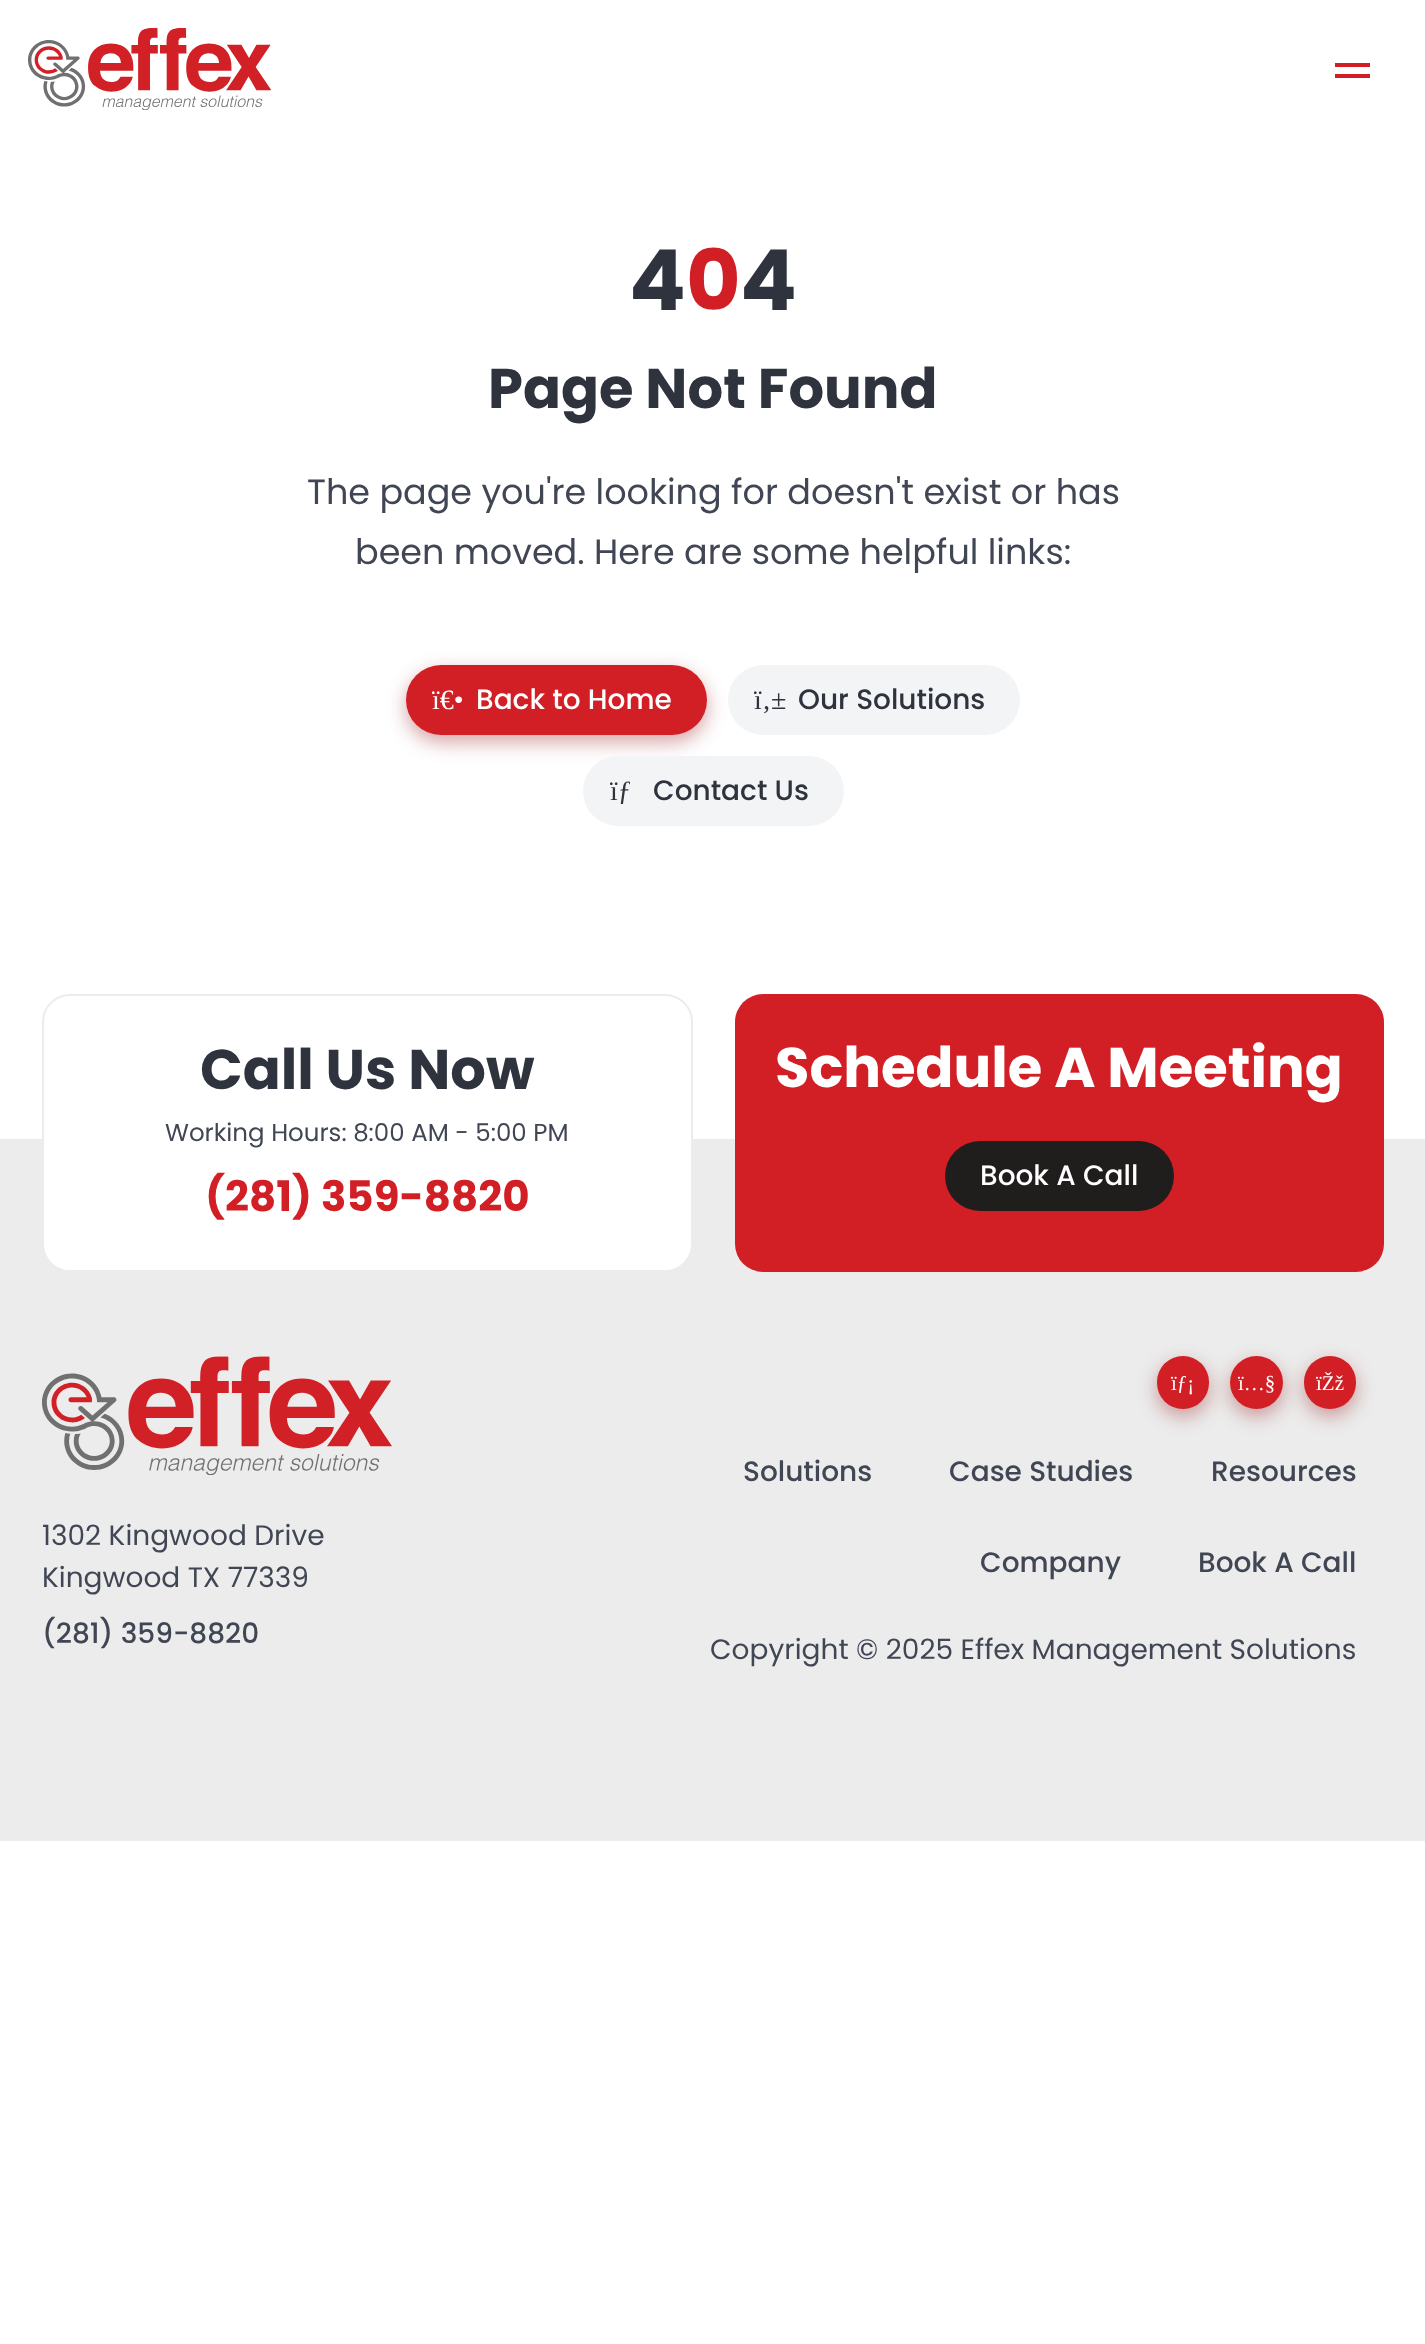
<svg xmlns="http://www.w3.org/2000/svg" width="1425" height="2344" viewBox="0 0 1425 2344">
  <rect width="100%" height="100%" fill="#fff"/>
  <image x="28" y="28" width="243" height="82" href="img/1.png"/>
  <path d="M1335 63h35v4H1335z" fill="#d11f25"/>
  <path d="M1335 74h35v4H1335z" fill="#d11f25"/>
  <rect x="406" y="672" width="301" height="70" rx="35" fill="#900e1361" filter="blur(9.5px)"/>
  <rect x="406" y="665" width="301" height="70" rx="35" fill="#d11f25"/>
  <rect x="728" y="665" width="292" height="70" rx="35" fill="#f3f4f6"/>
  <rect x="583" y="756" width="261" height="70" rx="35" fill="#f3f4f6"/>
  <path d="M0 1139h1425v702H0z" fill="#ececec"/>
  <rect x="43" y="995" width="649" height="276" rx="27" fill="#fff" stroke="#ececec" stroke-width="2"/>
  <rect x="735" y="994" width="649" height="278" rx="28" fill="#d11f25"/>
  <rect x="945" y="1141" width="229" height="70" rx="35" fill="#201d1d"/>
  <image x="42" y="1356" width="350" height="119" href="img/2.png"/>
  <rect x="1157" y="1363" width="52" height="53" rx="26" fill="#900e1361" filter="blur(9.5px)"/>
  <rect x="1157" y="1356" width="52" height="53" rx="26" fill="#d11f25"/>
  <rect x="1230" y="1363" width="53" height="53" rx="26.5" fill="#900e1361" filter="blur(9.5px)"/>
  <circle cx="1256.5" cy="1382.5" r="26.5" fill="#d11f25"/>
  <rect x="1304" y="1363" width="52" height="53" rx="26" fill="#900e1361" filter="blur(9.5px)"/>
  <rect x="1304" y="1356" width="52" height="53" rx="26" fill="#d11f25"/>
  <text x="629" y="310" font-family="Poppins" font-size="84" font-weight="bold" fill="#2e333d">4</text>
  <text x="686" y="310" font-family="Poppins" font-size="84" font-weight="bold" fill="#d11f25">0</text>
  <text x="740" y="310" font-family="Poppins" font-size="84" font-weight="bold" fill="#2e333d">4</text>
  <text x="488" y="408" font-family="Poppins" font-size="56" font-weight="bold" fill="#2e333d">Page Not Found</text>
  <g font-family="Poppins" font-size="35" fill="#404654">
    <text x="307" y="504">The page you're looking for doesn't exist or has</text>
    <text x="355" y="564">been moved. Here are some helpful links:</text>
  </g>
  <text x="432" y="709" font-family="Liberation Serif" font-size="28" fill="#fff">ï€•</text>
  <text x="476" y="709" font-family="Poppins" font-size="28" font-weight="500" fill="#fff">Back to Home</text>
  <text x="754" y="709" font-family="Liberation Serif" font-size="28" fill="#2e333d">ï‚±</text>
  <text x="798" y="709" font-family="Poppins" font-size="28" font-weight="500" fill="#2e333d">Our Solutions</text>
  <text x="610" y="800" font-family="Liberation Serif" font-size="28" fill="#2e333d">ïƒ</text>
  <text x="653" y="800" font-family="Poppins" font-size="28" font-weight="500" fill="#2e333d">Contact Us</text>
  <text x="200" y="1089" font-family="Poppins" font-size="56" font-weight="bold" fill="#2e333d">Call Us Now</text>
  <text x="165" y="1141" font-family="Poppins" font-size="24.5" fill="#404654">Working Hours: 8:00 AM - 5:00 PM</text>
  <text x="205" y="1211" font-family="Poppins" font-size="42" font-weight="bold" fill="#d11f25">(281) 359-8820</text>
  <text x="775" y="1087" font-family="Poppins" font-size="56" font-weight="bold" fill="#fff">Schedule A Meeting</text>
  <text x="980" y="1185" font-family="Poppins" font-size="28" font-weight="500" fill="#fff">Book A Call</text>
  <g font-family="Poppins" font-size="28" fill="#404654">
    <text x="42" y="1545">1302 Kingwood Drive</text>
    <text x="42" y="1587">Kingwood TX 77339</text>
  </g>
  <text x="42" y="1643" font-family="Poppins" font-size="28" font-weight="500" fill="#404654">(281) 359-8820</text>
  <g font-family="Liberation Serif" font-size="21" fill="#fff">
    <text x="1171" y="1390">ïƒ¡</text>
    <text x="1238" y="1390">ï…§</text>
    <text x="1316" y="1390">ïŽž</text>
  </g>
  <g font-family="Poppins" font-size="28" font-weight="500" fill="#404654">
    <text x="743" y="1481">Solutions</text>
    <text x="949" y="1481">Case Studies</text>
    <text x="1211" y="1481">Resources</text>
    <text x="980" y="1572">Company</text>
    <text x="1198" y="1572">Book A Call</text>
  </g>
  <text x="710" y="1659" font-family="Poppins" font-size="28" fill="#404654">Copyright © 2025 Effex Management Solutions</text>
</svg>
